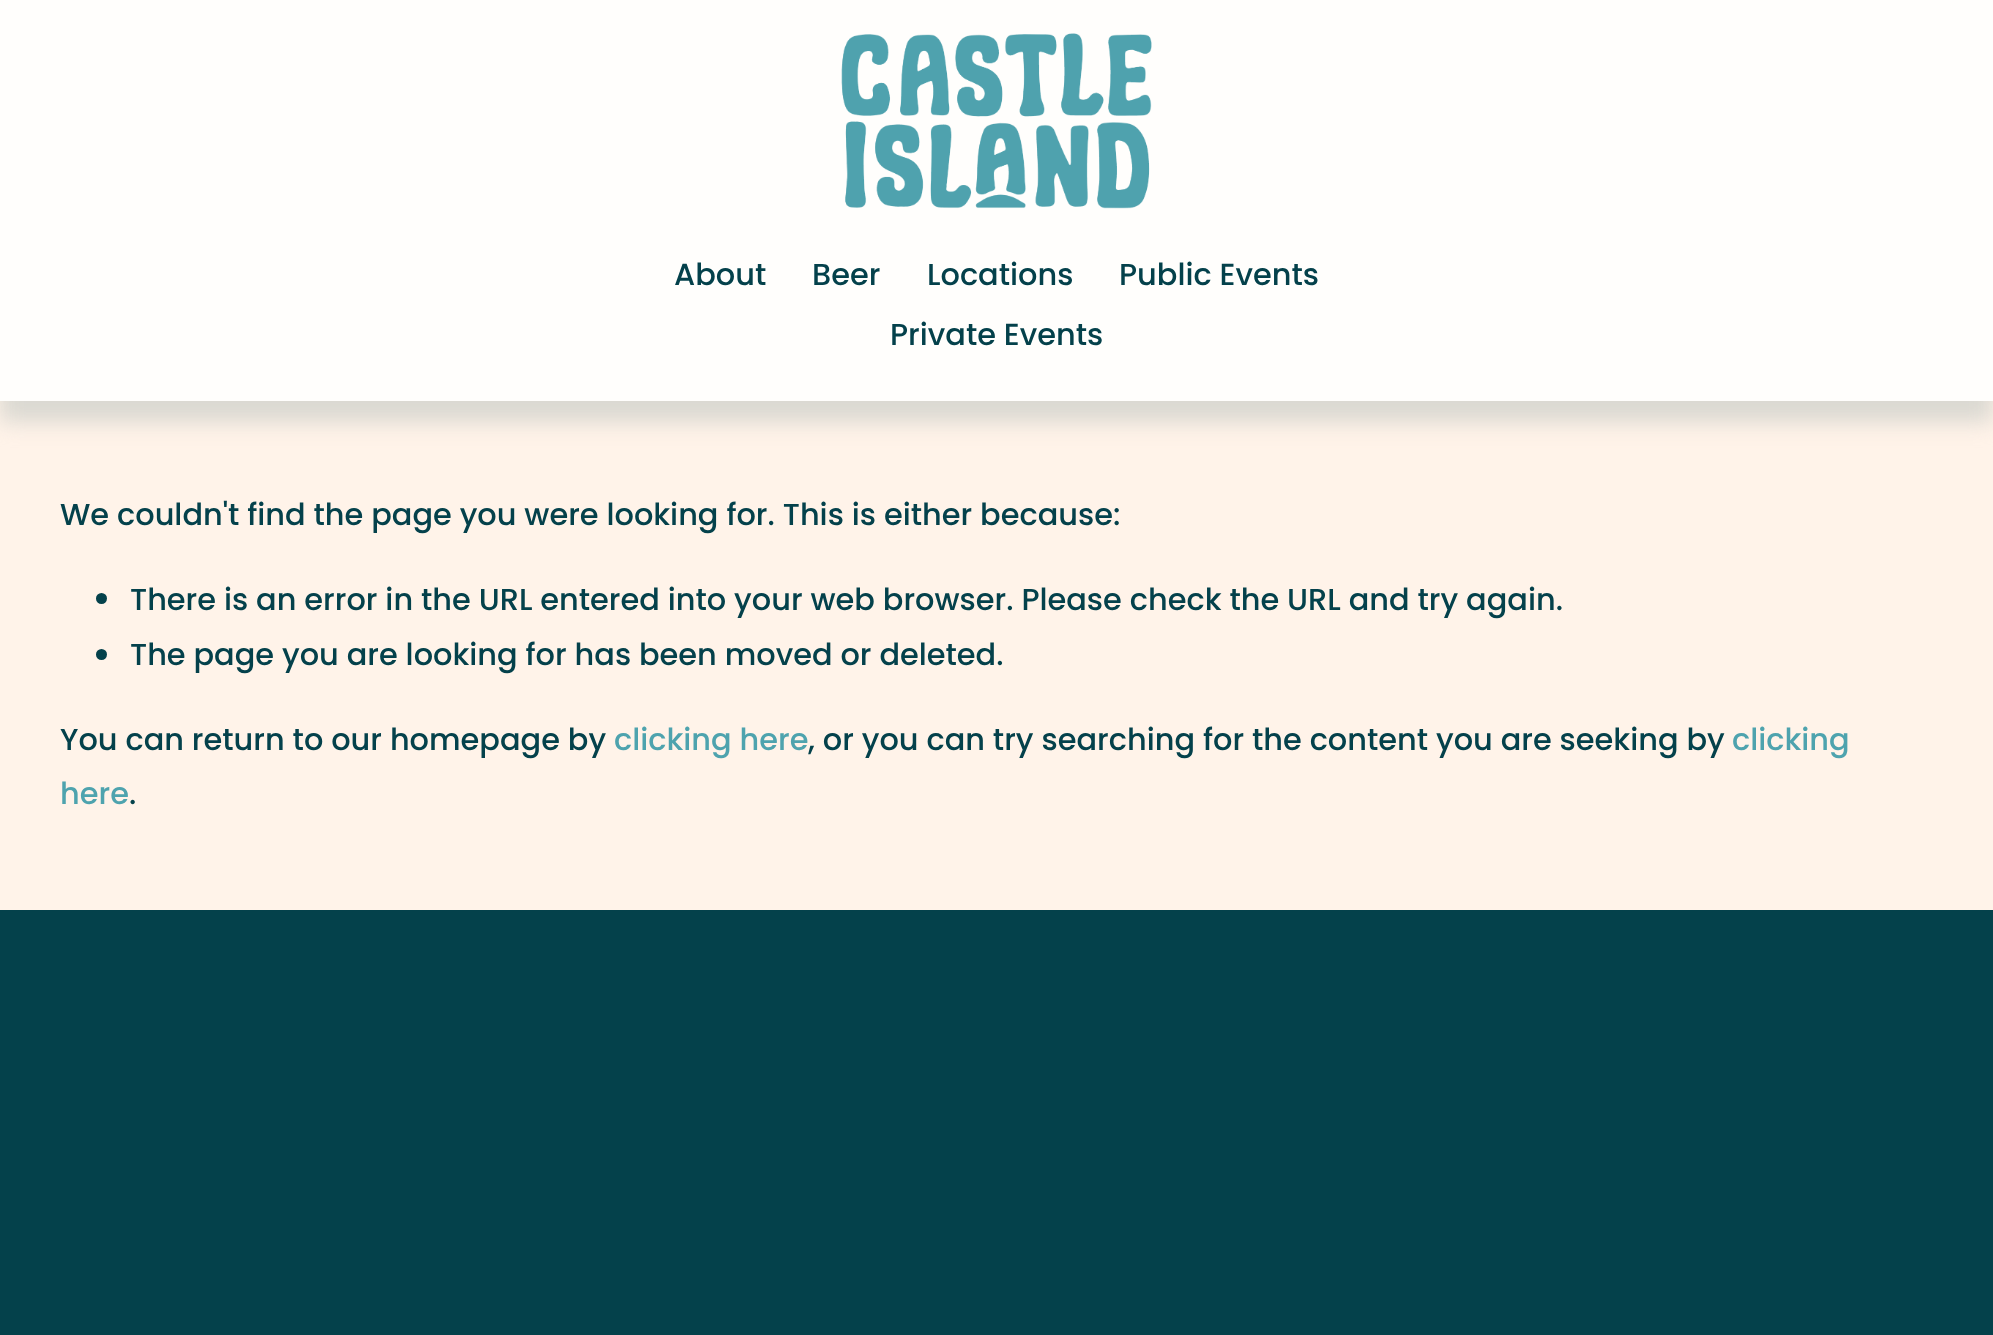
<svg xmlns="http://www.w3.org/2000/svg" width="1993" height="1335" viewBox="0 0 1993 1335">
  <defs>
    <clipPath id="clip1"><path d="M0 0H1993V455H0ZM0 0H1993V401H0Z" clip-rule="evenodd"/></clipPath>
  </defs>
  <rect width="100%" height="100%" fill="#fff3e9"/>
  <g clip-path="url(#clip1)">
    <path d="M0 21h1993v401H0z" fill="#dad8d1" filter="blur(10.5px)"/>
  </g>
  <path d="M0 0h1993v401H0z" fill="#ffffffd9"/>
  <image x="841" y="33" width="311" height="176" href="img/1.png"/>
  <circle cx="101.5" cy="598.5" r="5.5" fill="#04414b"/>
  <circle cx="101.5" cy="654.5" r="5.5" fill="#04414b"/>
  <path d="M0 910h1993v425H0z" fill="#04414b"/>
  <g font-family="Poppins" font-size="30.4" font-weight="500" fill="#04414b">
    <text x="674" y="285">About</text>
    <text x="812" y="285">Beer</text>
    <text x="927" y="285">Locations</text>
    <text x="1119" y="285">Public Events</text>
    <text x="890" y="345">Private Events</text>
    <text x="60" y="525">We couldn't find the page you were looking for. This is either because:</text>
    <text x="130" y="610">There is an error in the URL entered into your web browser. Please check the URL and try again.</text>
    <text x="130" y="665">The page you are looking for has been moved or deleted.</text>
    <text x="60" y="750">You can return to our homepage by</text>
  </g>
  <text x="614" y="750" font-family="Poppins" font-size="30.4" font-weight="500" fill="#4ea3ae">clicking here</text>
  <text x="808" y="750" font-family="Poppins" font-size="30.4" font-weight="500" fill="#04414b">, or you can try searching for the content you are seeking by</text>
  <g font-family="Poppins" font-size="30.4" font-weight="500" fill="#4ea3ae">
    <text x="1732" y="750">clicking</text>
    <text x="60" y="804">here</text>
  </g>
  <text x="129" y="804" font-family="Poppins" font-size="30.4" font-weight="500" fill="#04414b">.</text>
</svg>
